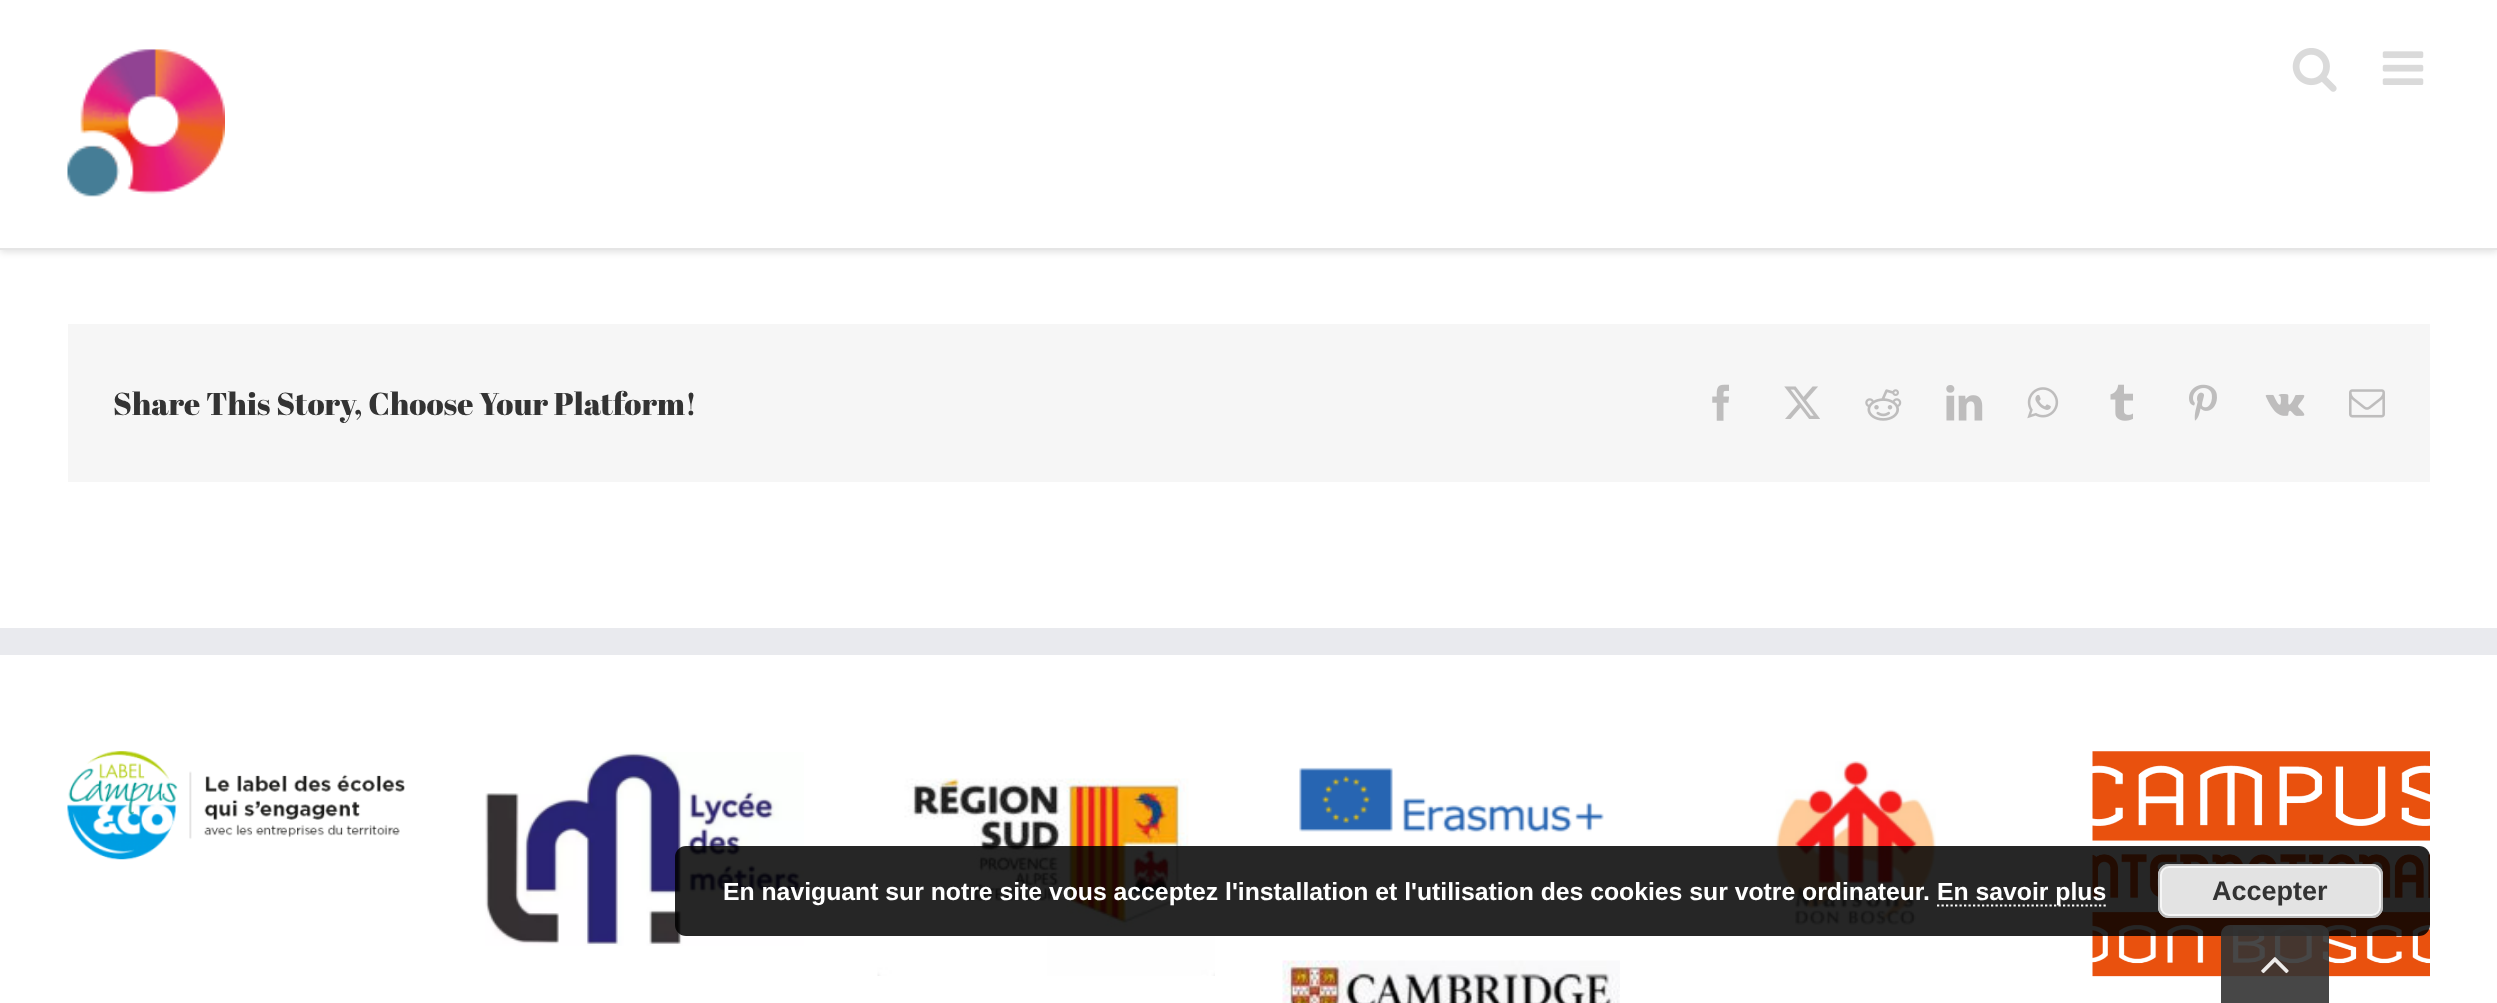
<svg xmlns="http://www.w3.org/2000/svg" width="2497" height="1003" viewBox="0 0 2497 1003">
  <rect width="100%" height="100%" fill="#fff"/>
  <path d="M0 2h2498v250H0z" fill="#0000001f" filter="blur(3.5px)"/>
  <path d="M0 0h2497v248H0z" fill="#fff"/>
  <path d="M0 248h2497v2H0z" fill="#e5e5e5"/>
  <image x="67" y="49" width="158" height="148" href="img/1.png"/>
  <image x="2292" y="48" width="45" height="44" href="img/2.png"/>
  <image x="2382" y="51" width="42" height="34" href="img/3.png"/>
  <path d="M68 324h2362v158H68z" fill="#f6f6f6"/>
  <image x="1712" y="384" width="17" height="37" href="img/4.png"/>
  <image x="1784" y="386" width="36" height="33" href="img/5.png"/>
  <image x="1865" y="389" width="37" height="32" href="img/6.png"/>
  <image x="1946" y="385" width="37" height="36" href="img/7.png"/>
  <image x="2027" y="387" width="32" height="32" href="img/8.png"/>
  <image x="2110" y="384" width="23" height="37" href="img/9.png"/>
  <image x="2189" y="384" width="28" height="37" href="img/10.png"/>
  <image x="2265" y="394" width="40" height="22" href="img/11.png"/>
  <image x="2349" y="389" width="36" height="29" href="img/12.png"/>
  <path d="M0 628h2497v27H0z" fill="#e9eaee"/>
  <image x="67" y="751" width="338" height="109" href="img/13.png"/>
  <image x="485" y="752" width="319" height="194" href="img/14.png"/>
  <image x="877" y="778" width="338" height="198" href="img/15.png"/>
  <image x="1299" y="767" width="305" height="66" href="img/16.png"/>
  <image x="1282" y="960" width="338" height="43" href="img/17.png"/>
  <image x="1775" y="761" width="161" height="164" href="img/18.png"/>
  <image x="2092" y="751" width="338" height="226" href="img/19.png"/>
  <rect x="675" y="846" width="1755" height="90" rx="11" fill="#000000d9"/>
  <path d="M1937 905.5H2106" fill="none" stroke="#fff" stroke-width="2.2" stroke-dasharray="2.25 2.25"/>
  <rect x="2158" y="864" width="225" height="54" rx="11" fill="#e3e3e3"/>
  <rect x="2161" y="867" width="219" height="48" rx="8" fill="none" stroke="#f6f6f6" stroke-width="2"/>
  <rect x="2159" y="865" width="223" height="52" rx="10" fill="none" stroke="#bbb" stroke-width="2"/>
  <path d="M2230 925H2320C2325 925 2329 929 2329 934V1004H2221V934C2221 929 2225 925 2230 925Z" fill="#333333e6"/>
  <image x="2261" y="957" width="28" height="17" href="img/20.png"/>
  <text x="113" y="415" font-family="Abril Fatface" font-size="31.5" fill="#333">Share This Story, Choose Your Platform!</text>
  <g font-family="Liberation Sans" font-size="24.75" font-weight="bold" fill="#fff">
    <text x="723" y="900">En naviguant sur notre site vous acceptez l'installation et l'utilisation des cookies sur votre ordinateur.</text>
    <text x="1937" y="900">En savoir plus</text>
  </g>
  <text x="2212" y="900" font-family="Liberation Sans" font-size="27" font-weight="bold" fill="#333">Accepter</text>
</svg>
